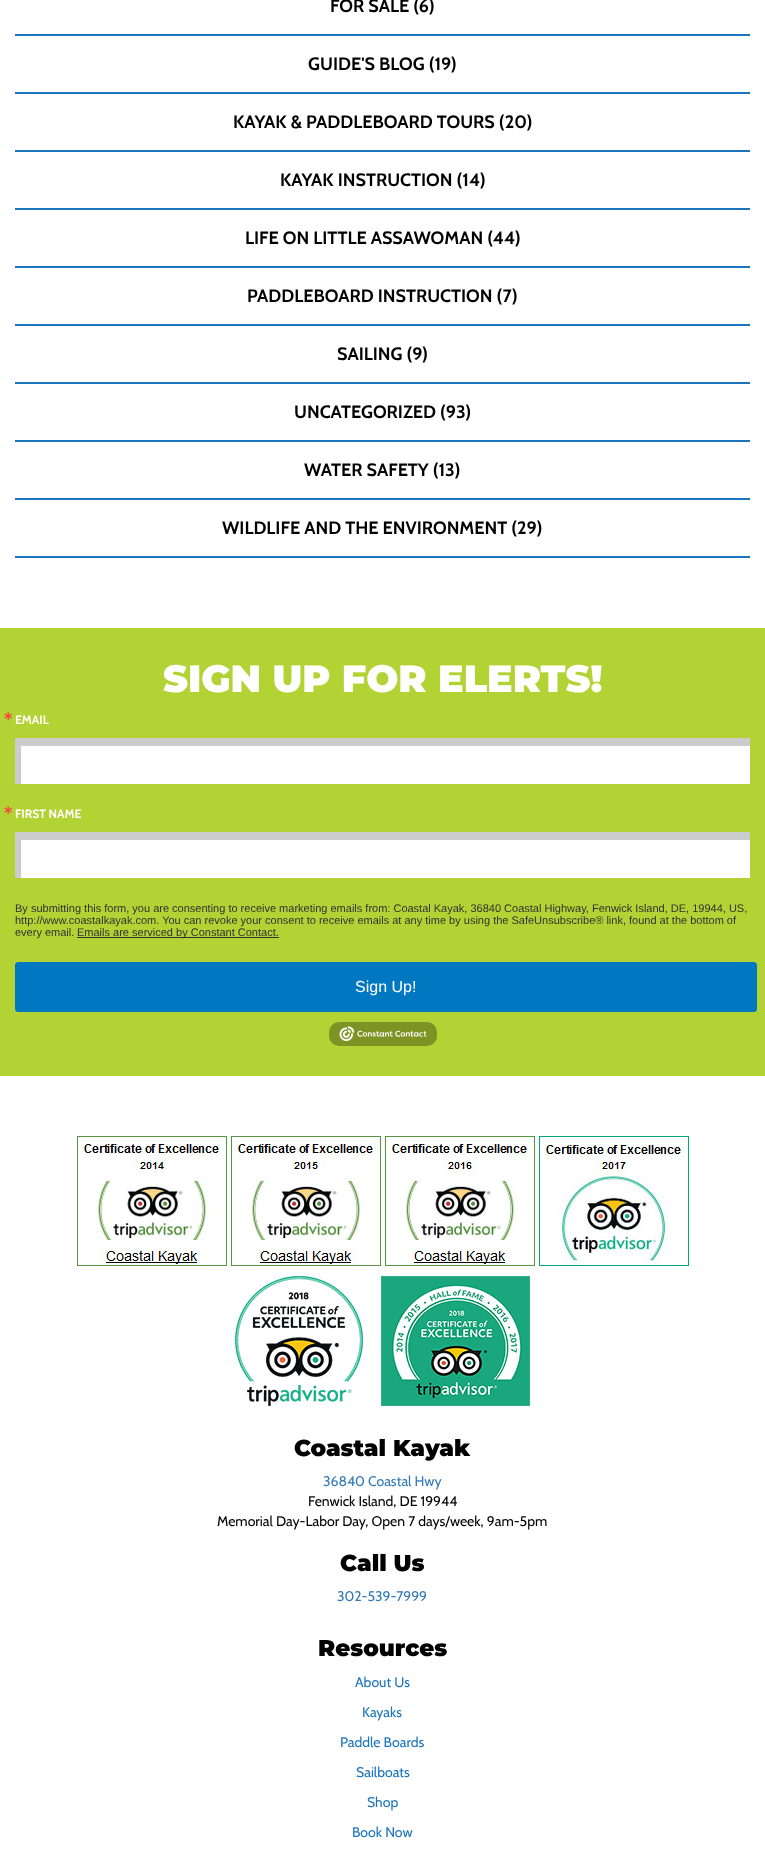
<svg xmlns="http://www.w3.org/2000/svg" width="765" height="1862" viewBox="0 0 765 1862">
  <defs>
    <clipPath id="clip1"><path d="M15 738h735v46H15z"/></clipPath>
    <clipPath id="clip2"><path d="M15 832h735v46H15z"/></clipPath>
  </defs>
  <rect width="100%" height="100%" fill="#fff"/>
  <path d="M15 34h735v2H15z" fill="#1b75bc"/>
  <path d="M15 92h735v2H15z" fill="#1b75bc"/>
  <path d="M15 150h735v2H15z" fill="#1b75bc"/>
  <path d="M15 208h735v2H15z" fill="#1b75bc"/>
  <path d="M15 266h735v2H15z" fill="#1b75bc"/>
  <path d="M15 324h735v2H15z" fill="#1b75bc"/>
  <path d="M15 382h735v2H15z" fill="#1b75bc"/>
  <path d="M15 440h735v2H15z" fill="#1b75bc"/>
  <path d="M15 498h735v2H15z" fill="#1b75bc"/>
  <path d="M15 556h735v2H15z" fill="#1b75bc"/>
  <path d="M0 628h765v448H0z" fill="#b3d334"/>
  <path d="M21 746h729v38H21z" fill="#fff"/>
  <g clip-path="url(#clip1)">
    <path d="M-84 639H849V883H-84ZM21 746H752V788H21Z" fill="#ccc" fill-rule="evenodd"/>
  </g>
  <path d="M21 840h729v38H21z" fill="#fff"/>
  <g clip-path="url(#clip2)">
    <path d="M-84 733H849V977H-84ZM21 840H752V882H21Z" fill="#ccc" fill-rule="evenodd"/>
  </g>
  <path d="M77 937h202v1H77z" fill="#323232"/>
  <rect x="15.5" y="962.5" width="741" height="49" rx="2.5" fill="#0078c1" stroke="#0078c1"/>
  <rect x="329" y="1022" width="108" height="24" rx="10" fill="#7d9424"/>
  <image x="339" y="1026" width="88" height="15" href="img/1.png"/>
  <image x="77" y="1136" width="612" height="130" href="img/2.png"/>
  <image x="235" y="1276" width="128" height="130" href="img/3.png"/>
  <image x="381" y="1276" width="149" height="130" href="img/4.png"/>
  <g font-family="Cabin" font-size="18" font-weight="bold" fill="#000">
    <text x="330" y="12">FOR SALE (6)</text>
    <text x="308" y="70">GUIDE'S BLOG (19)</text>
    <text x="233" y="128">KAYAK &amp; PADDLEBOARD TOURS (20)</text>
    <text x="280" y="186">KAYAK INSTRUCTION (14)</text>
    <text x="245" y="244">LIFE ON LITTLE ASSAWOMAN (44)</text>
    <text x="247" y="302">PADDLEBOARD INSTRUCTION (7)</text>
    <text x="337" y="360">SAILING (9)</text>
    <text x="294" y="418">UNCATEGORIZED (93)</text>
    <text x="304" y="476">WATER SAFETY (13)</text>
    <text x="222" y="534">WILDLIFE AND THE ENVIRONMENT (29)</text>
  </g>
  <text x="163" y="692" font-family="Montserrat" font-size="38" font-weight="900" fill="#fff">SIGN UP FOR ELERTS!</text>
  <text x="3" y="720" font-family="DejaVu Sans" font-size="12" font-weight="bold" fill="#f5463b">∗</text>
  <text x="15" y="724" font-family="Cabin" font-size="12" font-weight="bold" fill="#fff">EMAIL</text>
  <text x="3" y="814" font-family="DejaVu Sans" font-size="12" font-weight="bold" fill="#f5463b">∗</text>
  <text x="15" y="818" font-family="Cabin" font-size="12" font-weight="bold" fill="#fff">FIRST NAME</text>
  <g font-family="Liberation Sans" font-size="11" fill="#323232">
    <text x="15" y="912">By submitting this form, you are consenting to receive marketing emails from: Coastal Kayak, 36840 Coastal Highway, Fenwick Island, DE, 19944, US,</text>
    <text x="15" y="924">http://www.coastalkayak.com. You can revoke your consent to receive emails at any time by using the SafeUnsubscribe® link, found at the bottom of</text>
    <text x="15" y="936">every email.</text>
    <text x="77" y="936">Emails are serviced by Constant Contact.</text>
  </g>
  <text x="355" y="992" font-family="Liberation Sans" font-size="16" fill="#fff">Sign Up!</text>
  <text x="294" y="1456" font-family="Montserrat" font-size="23" font-weight="900" fill="#000">Coastal Kayak</text>
  <text x="323" y="1486" font-family="Cabin" font-size="14" fill="#337ab7">36840 Coastal Hwy</text>
  <g font-family="Cabin" font-size="14" fill="#000">
    <text x="308" y="1506">Fenwick Island, DE 19944</text>
    <text x="217" y="1526">Memorial Day-Labor Day, Open 7 days/week, 9am-5pm</text>
  </g>
  <text x="340" y="1571" font-family="Montserrat" font-size="23" font-weight="900" fill="#000">Call Us</text>
  <text x="337" y="1601" font-family="Cabin" font-size="14" fill="#337ab7">302-539-7999</text>
  <text x="318" y="1656" font-family="Montserrat" font-size="23" font-weight="900" fill="#000">Resources</text>
  <g font-family="Cabin" font-size="14" fill="#1b75bc">
    <text x="355" y="1687">About Us</text>
    <text x="362" y="1717">Kayaks</text>
    <text x="340" y="1747">Paddle Boards</text>
    <text x="356" y="1777">Sailboats</text>
    <text x="367" y="1807">Shop</text>
    <text x="352" y="1837">Book Now</text>
  </g>
</svg>
